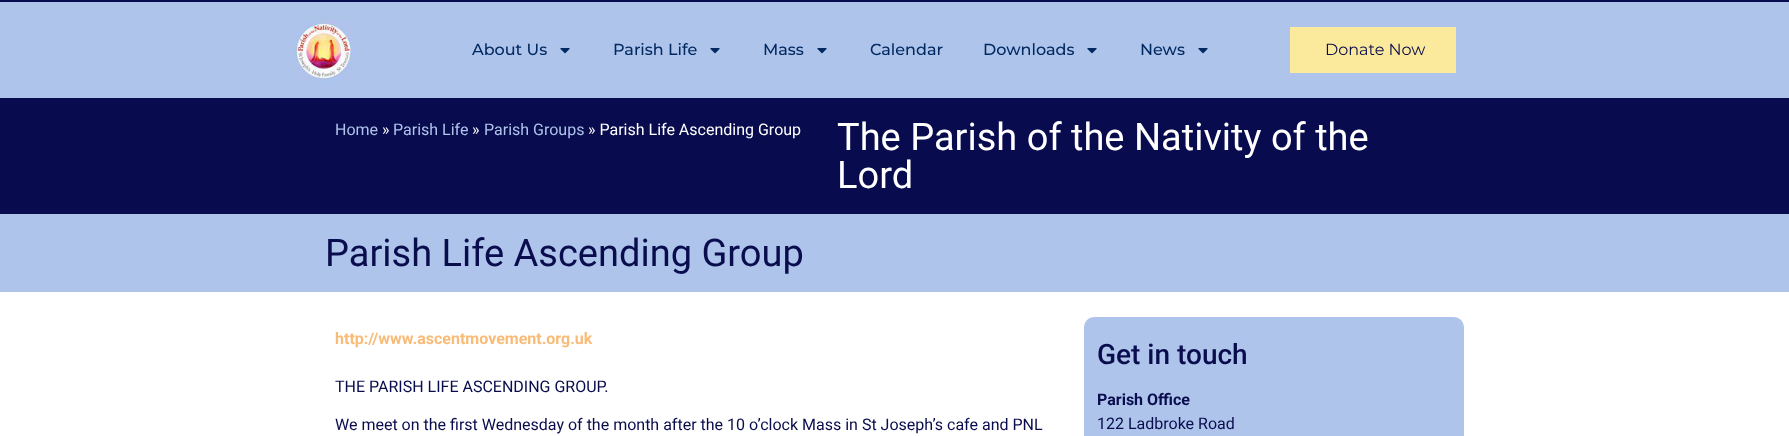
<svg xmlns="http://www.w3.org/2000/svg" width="1789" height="436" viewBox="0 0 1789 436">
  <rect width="100%" height="100%" fill="#fff"/>
  <path d="M0 0h1789v2H0z" fill="#080b4d"/>
  <path d="M0 2h1789v96H0z" fill="#aec4eb"/>
  <image x="295" y="17" width="58" height="66" href="img/1.png"/>
  <image x="560" y="48" width="10" height="6" href="img/2.png"/>
  <image x="710" y="48" width="10" height="6" href="img/2.png"/>
  <image x="817" y="48" width="10" height="6" href="img/2.png"/>
  <image x="1087" y="48" width="10" height="6" href="img/2.png"/>
  <image x="1198" y="48" width="10" height="6" href="img/2.png"/>
  <path d="M1290 27h166v46H1290z" fill="#fbea9b"/>
  <path d="M0 98h1789v116H0z" fill="#080b4d"/>
  <path d="M0 214h1789v78H0z" fill="#aec4eb"/>
  <rect x="1084" y="317" width="380" height="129" rx="10" fill="#aec4eb"/>
  <g font-family="Montserrat" font-size="16" font-weight="500" fill="#002961">
    <text x="472" y="55">About Us</text>
    <text x="613" y="55">Parish Life</text>
    <text x="763" y="55">Mass</text>
    <text x="870" y="55">Calendar</text>
    <text x="983" y="55">Downloads</text>
    <text x="1140" y="55">News</text>
  </g>
  <text x="1325" y="55" font-family="Montserrat" font-size="16" fill="#090c4d">Donate Now</text>
  <text x="335" y="135" font-family="Roboto" font-size="16" fill="#aec4eb">Home</text>
  <text x="382" y="135" font-family="Roboto" font-size="16" fill="#fff">»</text>
  <text x="393" y="135" font-family="Roboto" font-size="16" fill="#aec4eb">Parish Life</text>
  <text x="472" y="135" font-family="Roboto" font-size="16" fill="#fff">»</text>
  <text x="484" y="135" font-family="Roboto" font-size="16" fill="#aec4eb">Parish Groups</text>
  <text x="588" y="135" font-family="Roboto" font-size="16" fill="#fff">» Parish Life Ascending Group</text>
  <g font-family="Roboto" font-size="38" fill="#fff">
    <text x="837" y="150">The Parish of the Nativity of the</text>
    <text x="837" y="188">Lord</text>
  </g>
  <text x="325" y="266" font-family="Roboto" font-size="38" fill="#090c4d">Parish Life Ascending Group</text>
  <text x="335" y="344" font-family="Roboto" font-size="16" font-weight="bold" fill="#f9bb78">http://www.ascentmovement.org.uk</text>
  <g font-family="Roboto" font-size="16" fill="#090c4d">
    <text x="335" y="392">THE PARISH LIFE ASCENDING GROUP.</text>
    <text x="335" y="430">We meet on the first Wednesday of the month after the 10 o’clock Mass in St Joseph’s cafe and PNL</text>
  </g>
  <text x="1097" y="364" font-family="Roboto" font-size="28" font-weight="500" fill="#090c4d">Get in touch</text>
  <text x="1097" y="405" font-family="Roboto" font-size="16" font-weight="bold" fill="#090c4d">Parish Office</text>
  <text x="1097" y="429" font-family="Roboto" font-size="16" fill="#090c4d">122 Ladbroke Road</text>
</svg>
